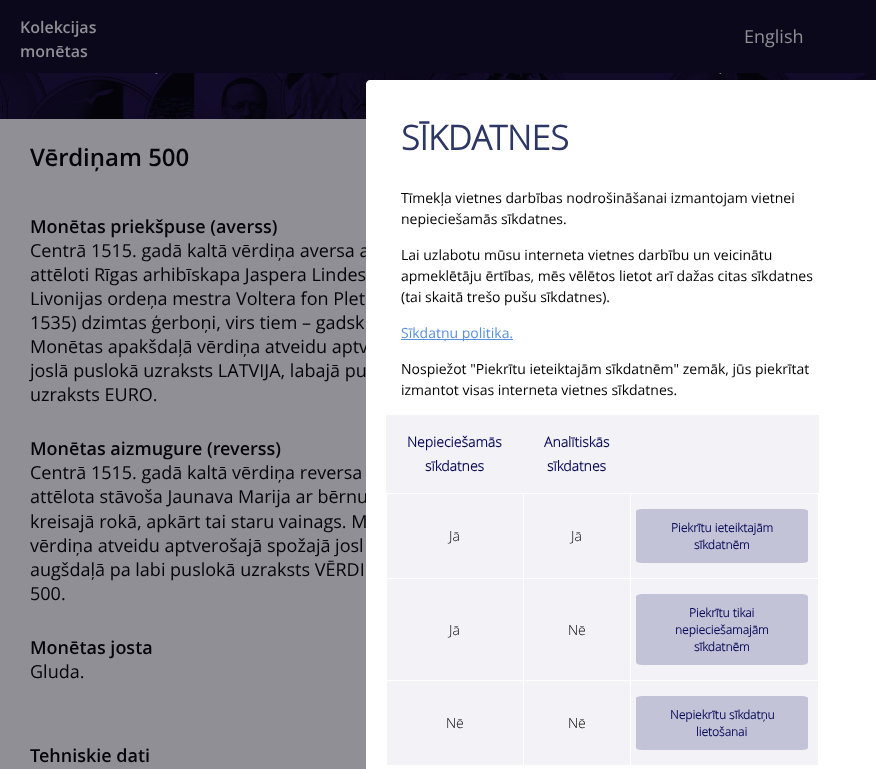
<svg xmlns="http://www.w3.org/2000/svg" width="876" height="769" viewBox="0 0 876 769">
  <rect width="100%" height="100%" fill="#fff"/>
  <image x="0" y="73" width="876" height="46" href="img/1.png"/>
  <path d="M0 0h876v73H0z" fill="#0c081b"/>
  <image x="155" y="73" width="3" height="1" href="img/2.png"/>
  <image x="719" y="73" width="3" height="1" href="img/3.png"/>
  <path d="M0 119h366v650H0z" fill="#8f8f95"/>
  <g font-family="Open Sans" font-size="16" font-weight="600" fill="#8f8f95">
    <text x="20" y="33">Kolekcijas</text>
    <text x="20" y="57">monētas</text>
  </g>
  <text x="744" y="43" font-family="Open Sans" font-size="18" fill="#8f8f95">English</text>
  <text x="30" y="166" font-family="Open Sans" font-size="24" font-weight="600" fill="#030309">Vērdiņam 500</text>
  <text x="30" y="233" font-family="Open Sans" font-size="18" font-weight="600" fill="#030309">Monētas priekšpuse (averss)</text>
  <g font-family="Open Sans" font-size="18" fill="#030309">
    <text x="30" y="257">Centrā 1515. gadā kaltā vērdiņa aversa a</text>
    <text x="30" y="281">attēloti Rīgas arhibīskapa Jaspera Lindes</text>
    <text x="30" y="305">Livonijas ordeņa mestra Voltera fon Plet</text>
    <text x="30" y="329">1535) dzimtas ģerboņi, virs tiem – gadsk</text>
    <text x="30" y="353">Monētas apakšdaļā vērdiņa atveidu aptv</text>
    <text x="30" y="377">joslā puslokā uzraksts LATVIJA, labajā pu</text>
    <text x="30" y="401">uzraksts EURO.</text>
  </g>
  <text x="30" y="455" font-family="Open Sans" font-size="18" font-weight="600" fill="#030309">Monētas aizmugure (reverss)</text>
  <g font-family="Open Sans" font-size="18" fill="#030309">
    <text x="30" y="479">Centrā 1515. gadā kaltā vērdiņa reversa</text>
    <text x="30" y="503">attēlota stāvoša Jaunava Marija ar bērnu</text>
    <text x="30" y="528">kreisajā rokā, apkārt tai staru vainags. M</text>
    <text x="30" y="552">vērdiņa atveidu aptverošajā spožajā josl</text>
    <text x="30" y="576">augšdaļā pa labi puslokā uzraksts VĒRDI</text>
    <text x="30" y="600">500.</text>
  </g>
  <text x="30" y="654" font-family="Open Sans" font-size="18" font-weight="600" fill="#030309">Monētas josta</text>
  <text x="30" y="678" font-family="Open Sans" font-size="18" fill="#030309">Gluda.</text>
  <text x="30" y="762" font-family="Open Sans" font-size="18" font-weight="600" fill="#030309">Tehniskie dati</text>
  <path d="M370 80H876V769H366V84C366 82 368 80 370 80Z" fill="#fff"/>
  <text x="401" y="150" font-family="Open Sans" font-size="34" font-weight="bold" fill="#2c3765">SĪKDATNES</text>
  <g font-family="Open Sans" font-size="14" fill="#000">
    <text x="401" y="203">Tīmekļa vietnes darbības nodrošināšanai izmantojam vietnei</text>
    <text x="401" y="224">nepieciešamās sīkdatnes.</text>
    <text x="401" y="260">Lai uzlabotu mūsu interneta vietnes darbību un veicinātu</text>
    <text x="401" y="281">apmeklētāju ērtības, mēs vēlētos lietot arī dažas citas sīkdatnes</text>
    <text x="401" y="302">(tai skaitā trešo pušu sīkdatnes).</text>
  </g>
  <path d="M401 339h112v1H401z" fill="#5990de"/>
  <text x="401" y="338" font-family="Open Sans" font-size="14" fill="#5990de">Sīkdatņu politika.</text>
  <g font-family="Open Sans" font-size="14" fill="#000">
    <text x="401" y="374">Nospiežot "Piekrītu ieteiktajām sīkdatnēm" zemāk, jūs piekrītat</text>
    <text x="401" y="395">izmantot visas interneta vietnes sīkdatnes.</text>
  </g>
  <path d="M386 415h433v350H386z" fill="#f2f2f7"/>
  <g font-family="Open Sans" font-size="14" font-weight="bold" fill="#090959">
    <text x="407" y="447">Nepieciešamās</text>
    <text x="425" y="471">sīkdatnes</text>
    <text x="544" y="447">Analītiskās</text>
    <text x="547" y="471">sīkdatnes</text>
  </g>
  <g font-family="Open Sans" font-size="14" font-weight="300" fill="#000">
    <text x="449" y="541">Jā</text>
    <text x="571" y="541">Jā</text>
  </g>
  <path d="M630 493h189v1H630z" fill="#fff"/>
  <path d="M643 509H801C805 509 808 510 808 511V561C808 562 805 563 801 563H643C639 563 636 562 636 561V511C636 510 639 509 643 509Z" fill="#c3c3d7"/>
  <g font-family="Open Sans" font-size="12" font-weight="bold" fill="#090959">
    <text x="671" y="532">Piekrītu ieteiktajām</text>
    <text x="694" y="549">sīkdatnēm</text>
  </g>
  <g font-family="Open Sans" font-size="14" font-weight="300" fill="#000">
    <text x="449" y="635">Jā</text>
    <text x="568" y="635">Nē</text>
  </g>
  <path d="M630 578h189v1H630z" fill="#fff"/>
  <path d="M643 594H801C805 594 808 595 808 597V662C808 664 805 665 801 665H643C639 665 636 664 636 662V597C636 595 639 594 643 594Z" fill="#c3c3d7"/>
  <g font-family="Open Sans" font-size="12" font-weight="bold" fill="#090959">
    <text x="689" y="617">Piekrītu tikai</text>
    <text x="675" y="634">nepieciešamajām</text>
    <text x="694" y="651">sīkdatnēm</text>
  </g>
  <g font-family="Open Sans" font-size="14" font-weight="300" fill="#000">
    <text x="446" y="728">Nē</text>
    <text x="568" y="728">Nē</text>
  </g>
  <path d="M630 680h189v1H630z" fill="#fff"/>
  <path d="M818 680h1v86H818z" fill="#fff"/>
  <path d="M818 578h1v103H818z" fill="#fff"/>
  <path d="M818 493h1v86H818z" fill="#fff"/>
  <path d="M630 680h1v86H630z" fill="#fff"/>
  <path d="M523 680h108v1H523z" fill="#fff"/>
  <path d="M630 578h1v103H630z" fill="#fff"/>
  <path d="M523 578h108v1H523z" fill="#fff"/>
  <path d="M630 493h1v86H630z" fill="#fff"/>
  <path d="M523 493h108v1H523z" fill="#fff"/>
  <path d="M523 680h1v86H523z" fill="#fff"/>
  <path d="M386 680h138v1H386z" fill="#fff"/>
  <path d="M523 578h1v103H523z" fill="#fff"/>
  <path d="M386 578h138v1H386z" fill="#fff"/>
  <path d="M523 493h1v86H523z" fill="#fff"/>
  <path d="M386 493h138v1H386z" fill="#fff"/>
  <path d="M386 680h1v86H386z" fill="#fff"/>
  <path d="M386 578h1v103H386z" fill="#fff"/>
  <path d="M386 493h1v86H386z" fill="#fff"/>
  <path d="M643 696H801C805 696 808 697 808 698V748C808 749 805 750 801 750H643C639 750 636 749 636 748V698C636 697 639 696 643 696Z" fill="#c3c3d7"/>
  <g font-family="Open Sans" font-size="12" font-weight="bold" fill="#090959">
    <text x="670" y="719">Nepiekrītu sīkdatņu</text>
    <text x="696" y="736">lietošanai</text>
  </g>
</svg>
